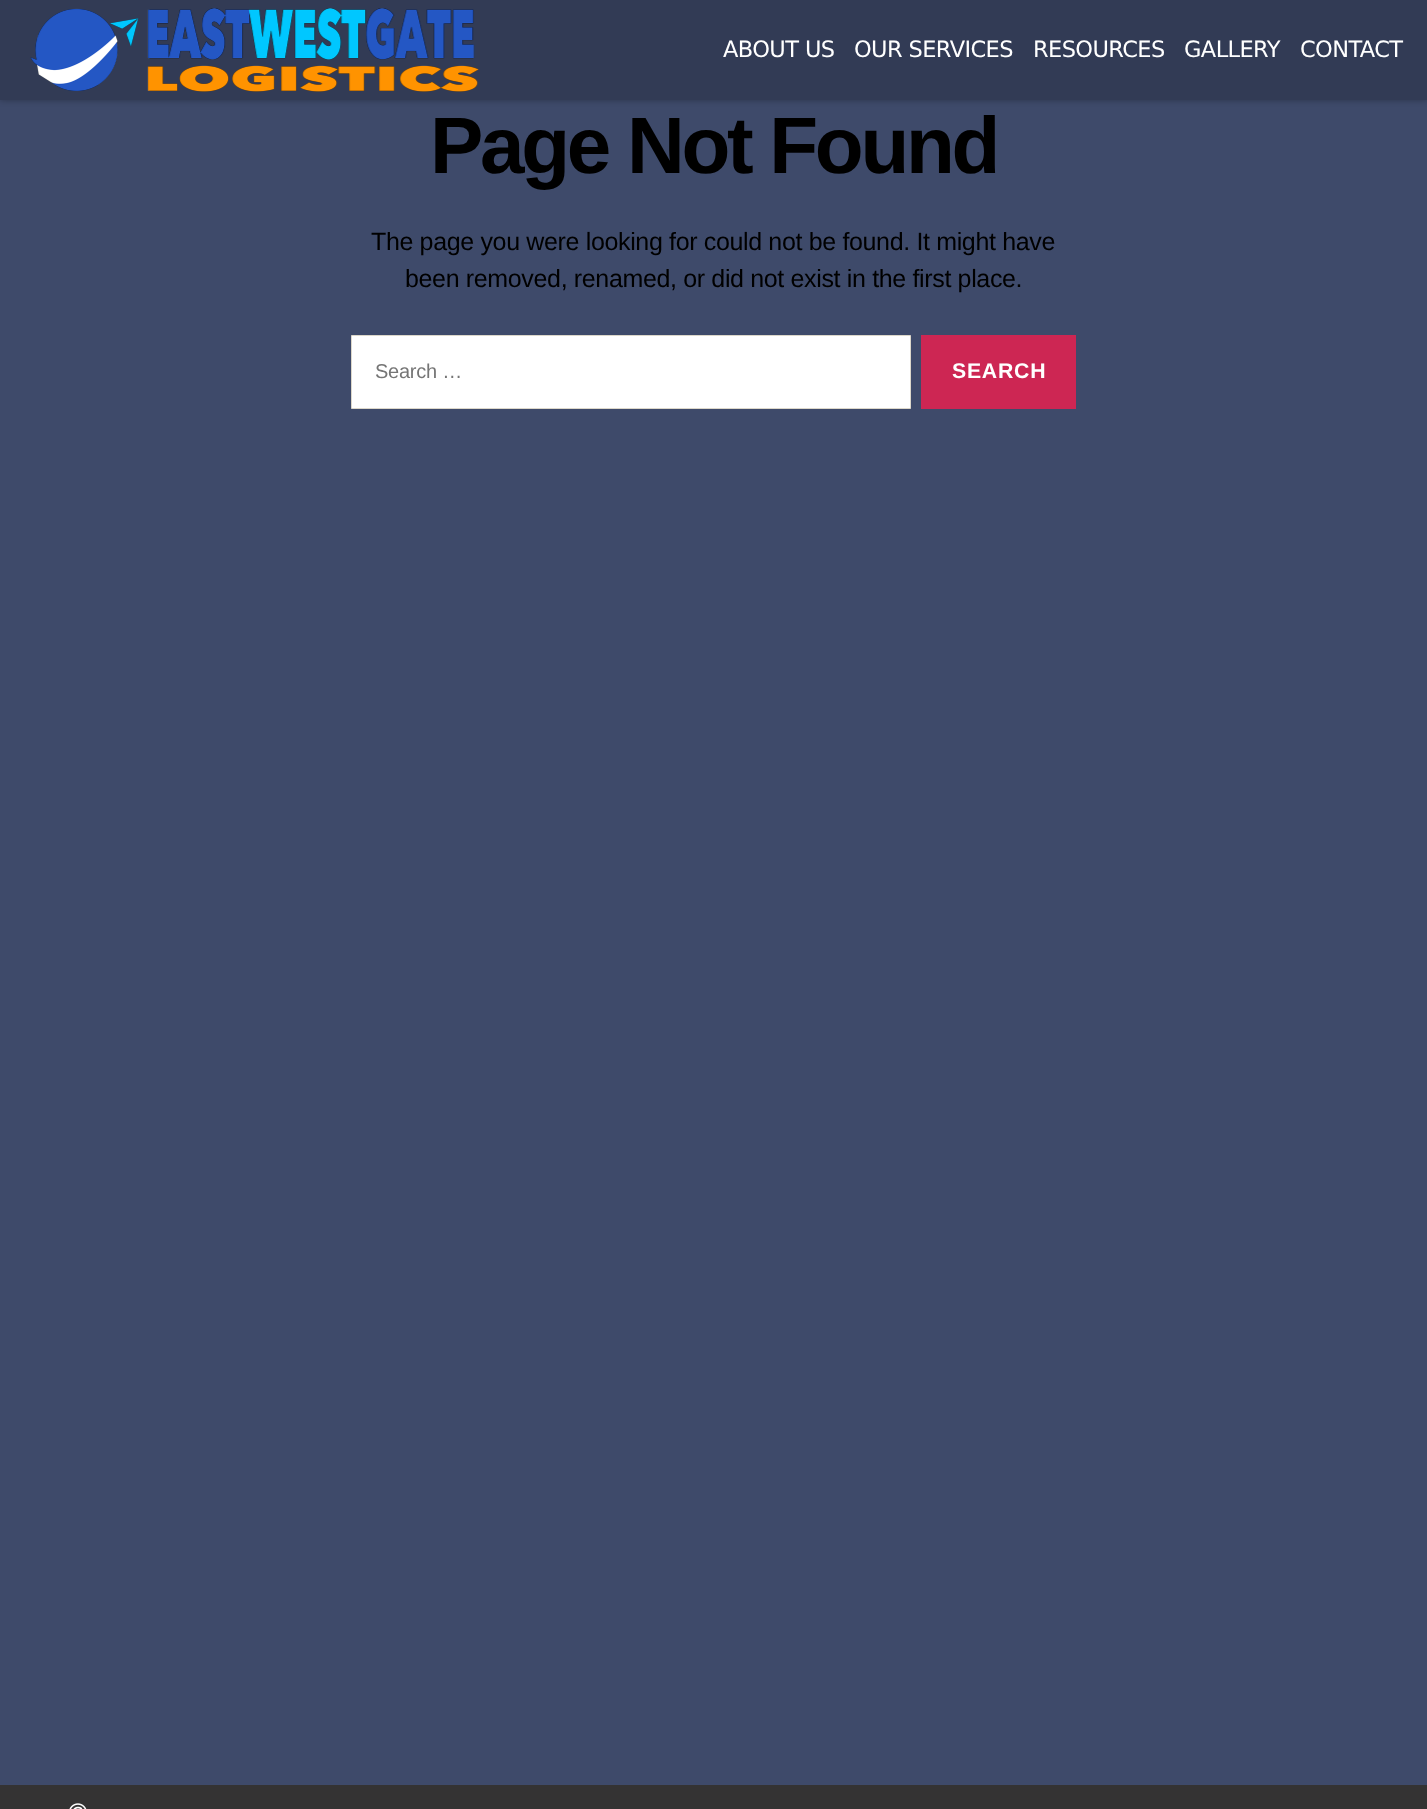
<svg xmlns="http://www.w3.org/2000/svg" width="1427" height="1809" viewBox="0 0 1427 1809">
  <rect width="100%" height="100%" fill="#343333"/>
  <path d="M0 100h1427v1685H0z" fill="#3e4a6a"/>
  <path d="M0 0h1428v100H0z" fill="#0000004d" filter="blur(3px)"/>
  <path d="M0 0h1427v100H0z" fill="#323b55"/>
  <image x="30" y="8" width="449" height="84" href="img/1.png"/>
  <path d="M351.5 335.5h559v73H351.5z" fill="#fff" stroke="#dcd7ca"/>
  <path d="M921 335h155v74H921z" fill="#cd2653"/>
  <image x="69" y="1803" width="18" height="6" href="img/2.png"/>
  <g font-family="DejaVu Sans" font-size="22.5" letter-spacing="-0.6" fill="#fff">
    <text x="723" y="57">ABOUT US</text>
    <text x="854" y="57">OUR SERVICES</text>
    <text x="1033" y="57">RESOURCES</text>
    <text x="1184" y="57">GALLERY</text>
    <text x="1300" y="57">CONTACT</text>
  </g>
  <text x="430" y="173" font-family="Liberation Sans" font-size="80" font-weight="bold" letter-spacing="-3.3" fill="#000">Page Not Found</text>
  <g font-family="Liberation Sans" font-size="25" letter-spacing="-0.35" fill="#000">
    <text x="371" y="250">The page you were looking for could not be found. It might have</text>
    <text x="405" y="287">been removed, renamed, or did not exist in the first place.</text>
  </g>
  <text x="375" y="378" font-family="Liberation Sans" font-size="20" letter-spacing="-0.25" fill="#757575">Search …</text>
  <text x="952" y="378" font-family="Liberation Sans" font-size="21.25" font-weight="bold" letter-spacing="0.75" fill="#fff">SEARCH</text>
</svg>
